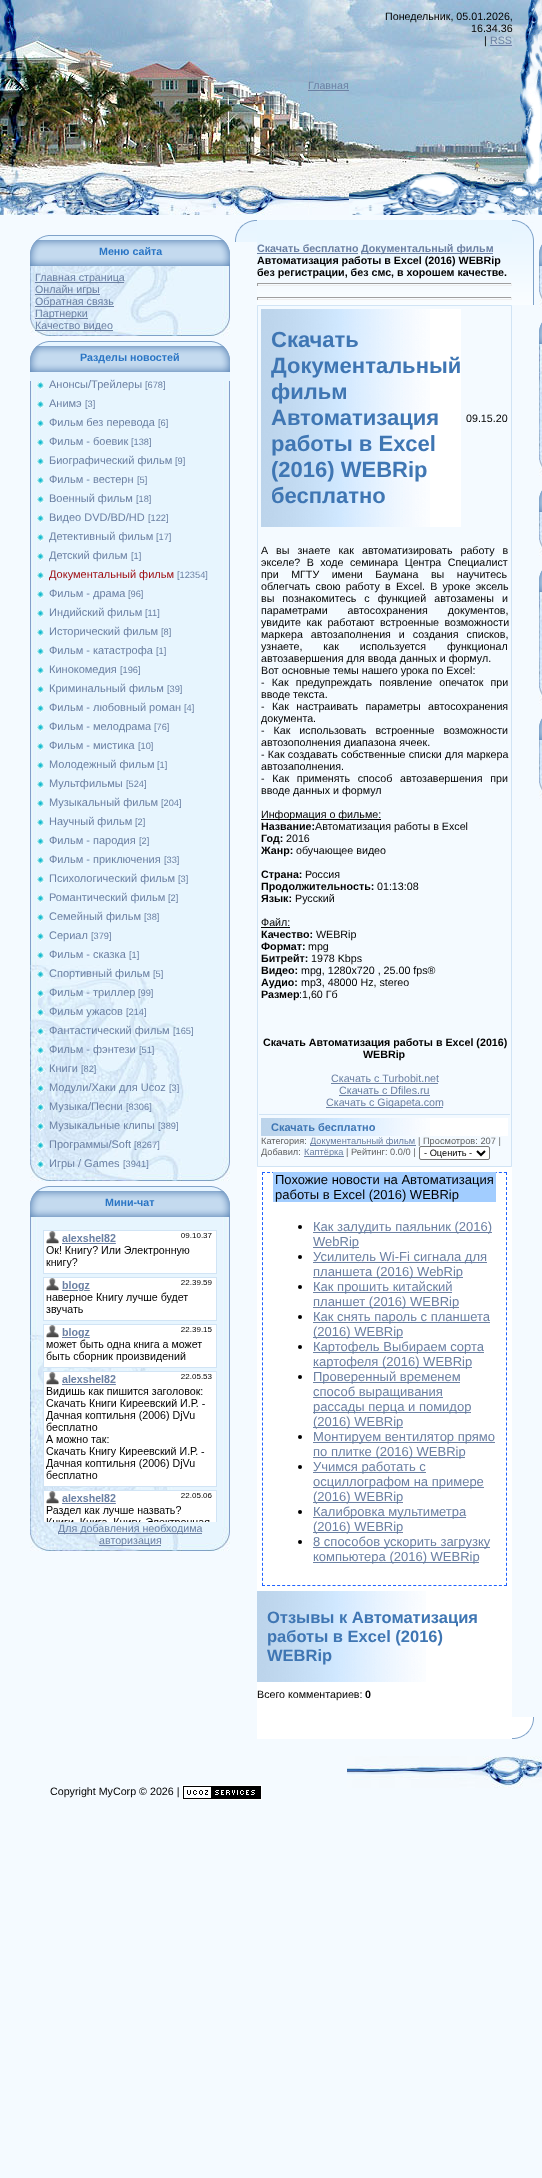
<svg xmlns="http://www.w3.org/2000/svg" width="542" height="2178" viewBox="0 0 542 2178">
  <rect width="100%" height="100%" fill="#f4faff"/>
  <image x="308" y="0" width="223" height="215" href="img/1.png"/>
  <image x="0" y="0" width="308" height="215" href="img/2.png"/>
  <image x="349" y="0" width="193" height="215" href="img/3.png"/>
  <path d="M490 45h22v1H490z" fill="#6b80a3"/>
  <path d="M308 90h41v1H308z" fill="#6b80a3"/>
  <image x="30" y="235" width="200" height="31" href="img/4.png"/>
  <image x="30" y="266" width="200" height="70" href="img/5.png"/>
  <path d="M35 282h89v1H35z" fill="#6b80a3"/>
  <path d="M35 294h65v1H35z" fill="#6b80a3"/>
  <path d="M35 306h79v1H35z" fill="#6b80a3"/>
  <path d="M35 318h53v1H35z" fill="#6b80a3"/>
  <path d="M35 330h78v1H35z" fill="#6b80a3"/>
  <image x="30" y="341" width="200" height="31" href="img/4.png"/>
  <path d="M30 372h200v9H30z" fill="#e7f5ff"/>
  <image x="30" y="381" width="200" height="800" href="img/6.png"/>
  <image x="36" y="382" width="9" height="8" href="img/7.png"/>
  <image x="36" y="401" width="9" height="8" href="img/7.png"/>
  <image x="36" y="420" width="9" height="8" href="img/7.png"/>
  <image x="36" y="439" width="9" height="8" href="img/7.png"/>
  <image x="36" y="458" width="9" height="8" href="img/7.png"/>
  <image x="36" y="477" width="9" height="8" href="img/7.png"/>
  <image x="36" y="496" width="9" height="8" href="img/7.png"/>
  <image x="36" y="515" width="9" height="8" href="img/7.png"/>
  <image x="36" y="534" width="9" height="8" href="img/7.png"/>
  <image x="36" y="553" width="9" height="8" href="img/7.png"/>
  <image x="36" y="572" width="9" height="8" href="img/7.png"/>
  <image x="36" y="591" width="9" height="8" href="img/7.png"/>
  <image x="36" y="610" width="9" height="8" href="img/7.png"/>
  <image x="36" y="629" width="9" height="8" href="img/7.png"/>
  <image x="36" y="648" width="9" height="8" href="img/7.png"/>
  <image x="36" y="667" width="9" height="8" href="img/7.png"/>
  <image x="36" y="686" width="9" height="8" href="img/7.png"/>
  <image x="36" y="705" width="9" height="8" href="img/7.png"/>
  <image x="36" y="724" width="9" height="8" href="img/7.png"/>
  <image x="36" y="743" width="9" height="8" href="img/7.png"/>
  <image x="36" y="762" width="9" height="8" href="img/7.png"/>
  <image x="36" y="781" width="9" height="8" href="img/7.png"/>
  <image x="36" y="800" width="9" height="8" href="img/7.png"/>
  <image x="36" y="819" width="9" height="8" href="img/7.png"/>
  <image x="36" y="838" width="9" height="8" href="img/7.png"/>
  <image x="36" y="857" width="9" height="8" href="img/7.png"/>
  <image x="36" y="876" width="9" height="8" href="img/7.png"/>
  <image x="36" y="895" width="9" height="8" href="img/7.png"/>
  <image x="36" y="914" width="9" height="8" href="img/7.png"/>
  <image x="36" y="933" width="9" height="8" href="img/7.png"/>
  <image x="36" y="952" width="9" height="8" href="img/8.png"/>
  <image x="36" y="970" width="9" height="9" href="img/9.png"/>
  <image x="36" y="989" width="9" height="9" href="img/10.png"/>
  <image x="36" y="1008" width="9" height="9" href="img/11.png"/>
  <image x="36" y="1027" width="9" height="9" href="img/12.png"/>
  <image x="36" y="1047" width="9" height="8" href="img/13.png"/>
  <image x="36" y="1065" width="9" height="9" href="img/14.png"/>
  <image x="36" y="1084" width="9" height="9" href="img/15.png"/>
  <image x="36" y="1103" width="9" height="9" href="img/16.png"/>
  <image x="36" y="1122" width="9" height="9" href="img/17.png"/>
  <image x="36" y="1141" width="9" height="9" href="img/18.png"/>
  <image x="36" y="1160" width="9" height="9" href="img/19.png"/>
  <image x="30" y="1186" width="200" height="31" href="img/4.png"/>
  <image x="30" y="1217" width="200" height="334" href="img/20.png"/>
  <image x="43" y="1230" width="174" height="292" href="img/21.png"/>
  <path d="M58 1533h144v1H58z" fill="#6b80a3"/>
  <path d="M99 1545h62v1H99z" fill="#6b80a3"/>
  <image x="235" y="220" width="22" height="22" href="img/22.png"/>
  <path d="M257 220h255v22H257z" fill="#e8f6ff"/>
  <image x="512" y="220" width="22" height="22" href="img/23.png"/>
  <path d="M257 1167h255v572H257z" fill="#fff"/>
  <image x="257" y="242" width="255" height="63" href="img/24.png"/>
  <path d="M257 253h101v1H257z" fill="#6b80a3"/>
  <path d="M361 253h132v1H361z" fill="#6b80a3"/>
  <path d="M257 283h255v1H257z" fill="#9f9f9f"/>
  <path d="M511 283h1v3H511z" fill="#eee"/>
  <path d="M257 285h255v1H257z" fill="#eee"/>
  <path d="M257 283h1v3H257z" fill="#9f9f9f"/>
  <path d="M257 297h255v1H257z" fill="#9f9f9f"/>
  <path d="M511 297h1v3H511z" fill="#eee"/>
  <path d="M257 299h255v1H257z" fill="#eee"/>
  <path d="M257 297h1v3H257z" fill="#9f9f9f"/>
  <path d="M257.5 305.5h254v861H257.5z" fill="none" stroke="#d1e4f5"/>
  <path d="M430 309h31v218H430z" fill="#fff"/>
  <image x="261" y="309" width="169" height="218" href="img/25.png"/>
  <path d="M261 819h120v1H261z" fill="#000"/>
  <path d="M261 927h29v1H261z" fill="#000"/>
  <path d="M331 1083h107v1H331z" fill="#6b80a3"/>
  <path d="M339 1095h91v1H339z" fill="#6b80a3"/>
  <path d="M326 1107h117v1H326z" fill="#6b80a3"/>
  <path d="M259 1114h251v1H259z" fill="#d1e4f5"/>
  <path d="M430 1118h78v18H430z" fill="#fff"/>
  <image x="261" y="1118" width="169" height="18" href="img/26.png"/>
  <path d="M310 1145h106v1H310z" fill="#6b80a3"/>
  <path d="M304 1156h40v1H304z" fill="#6b80a3"/>
  <rect x="419.5" y="1146.5" width="70" height="13" rx="1.5" fill="#fff" stroke="#767676"/>
  <path d="M477 1151L481 1155L485 1151" fill="none" stroke="#000" stroke-width="2"/>
  <path d="M262 1172.5H507" fill="none" stroke="#1d61ff" stroke-dasharray="3 2.04"/>
  <path d="M506.5 1172V1586" fill="none" stroke="#1d61ff" stroke-dasharray="3 2.01"/>
  <path d="M262 1585.5H507" fill="none" stroke="#1d61ff" stroke-dasharray="3 2.04"/>
  <path d="M262.5 1172V1586" fill="none" stroke="#1d61ff" stroke-dasharray="3 2.01"/>
  <path d="M273 1172h223v30H273z" fill="#a2cdff"/>
  <circle cx="300" cy="1227" r="2" fill="#000"/>
  <path d="M313 1232h179v1H313z" fill="#6b80a3"/>
  <path d="M313 1247h46v1H313z" fill="#6b80a3"/>
  <circle cx="300" cy="1257" r="2" fill="#000"/>
  <path d="M313 1262h174v1H313z" fill="#6b80a3"/>
  <path d="M313 1277h150v1H313z" fill="#6b80a3"/>
  <circle cx="300" cy="1287" r="2" fill="#000"/>
  <path d="M313 1292h139v1H313z" fill="#6b80a3"/>
  <path d="M313 1307h146v1H313z" fill="#6b80a3"/>
  <circle cx="300" cy="1317" r="2" fill="#000"/>
  <path d="M313 1322h177v1H313z" fill="#6b80a3"/>
  <path d="M313 1337h90v1H313z" fill="#6b80a3"/>
  <circle cx="300" cy="1347" r="2" fill="#000"/>
  <path d="M313 1352h171v1H313z" fill="#6b80a3"/>
  <path d="M313 1367h159v1H313z" fill="#6b80a3"/>
  <circle cx="300" cy="1377" r="2" fill="#000"/>
  <path d="M313 1382h147v1H313z" fill="#6b80a3"/>
  <path d="M313 1397h130v1H313z" fill="#6b80a3"/>
  <path d="M313 1412h158v1H313z" fill="#6b80a3"/>
  <path d="M313 1427h90v1H313z" fill="#6b80a3"/>
  <circle cx="300" cy="1437" r="2" fill="#000"/>
  <path d="M313 1442h182v1H313z" fill="#6b80a3"/>
  <path d="M313 1457h152v1H313z" fill="#6b80a3"/>
  <circle cx="300" cy="1467" r="2" fill="#000"/>
  <path d="M313 1472h113v1H313z" fill="#6b80a3"/>
  <path d="M313 1487h171v1H313z" fill="#6b80a3"/>
  <path d="M313 1502h90v1H313z" fill="#6b80a3"/>
  <circle cx="300" cy="1512" r="2" fill="#000"/>
  <path d="M313 1517h153v1H313z" fill="#6b80a3"/>
  <path d="M313 1532h90v1H313z" fill="#6b80a3"/>
  <circle cx="300" cy="1542" r="2" fill="#000"/>
  <path d="M313 1547h177v1H313z" fill="#6b80a3"/>
  <path d="M313 1562h166v1H313z" fill="#6b80a3"/>
  <image x="257" y="1591" width="169" height="91" href="img/27.png"/>
  <image x="512" y="242" width="22" height="63" href="img/28.png"/>
  <image x="512" y="1717" width="22" height="22" href="img/29.png"/>
  <image x="539" y="244" width="3" height="22" href="img/30.png"/>
  <image x="539" y="266" width="3" height="42" href="img/31.png"/>
  <image x="539" y="322" width="3" height="22" href="img/30.png"/>
  <image x="539" y="344" width="3" height="132" href="img/32.png"/>
  <image x="539" y="490" width="3" height="22" href="img/30.png"/>
  <image x="539" y="512" width="3" height="44" href="img/33.png"/>
  <image x="539" y="570" width="3" height="22" href="img/30.png"/>
  <image x="539" y="592" width="3" height="112" href="img/34.png"/>
  <image x="539" y="718" width="3" height="22" href="img/30.png"/>
  <image x="539" y="740" width="3" height="59" href="img/35.png"/>
  <image x="347" y="1756" width="195" height="32" href="img/36.png"/>
  <image x="182" y="1785" width="80" height="15" href="img/37.png"/>
  <g font-family="Liberation Sans" font-size="10.7" fill="#000">
    <text x="385" y="20">Понедельник, 05.01.2026,</text>
    <text x="471" y="32">16.34.36</text>
    <text x="484" y="44">|</text>
  </g>
  <g font-family="Liberation Sans" font-size="10.7" fill="#6b80a3">
    <text x="490" y="44">RSS</text>
    <text x="308" y="89">Главная</text>
  </g>
  <text x="99" y="255" font-family="Liberation Sans" font-size="10.7" font-weight="bold" fill="#2a75c4">Меню сайта</text>
  <g font-family="Liberation Sans" font-size="10.7" fill="#6b80a3">
    <text x="35" y="281">Главная страница</text>
    <text x="35" y="293">Онлайн игры</text>
    <text x="35" y="305">Обратная связь</text>
    <text x="35" y="317">Партнерки</text>
    <text x="35" y="329">Качество видео</text>
  </g>
  <text x="80" y="361" font-family="Liberation Sans" font-size="10.7" font-weight="bold" fill="#2a75c4">Разделы новостей</text>
  <text x="49" y="388" font-family="Liberation Sans" font-size="11" fill="#6b80a3">Анонсы/Трейлеры</text>
  <text x="145" y="388" font-family="Liberation Sans" font-size="9.25" fill="#6b80a3">[678]</text>
  <text x="49" y="407" font-family="Liberation Sans" font-size="11" fill="#6b80a3">Анимэ</text>
  <text x="85" y="407" font-family="Liberation Sans" font-size="9.25" fill="#6b80a3">[3]</text>
  <text x="49" y="426" font-family="Liberation Sans" font-size="11" fill="#6b80a3">Фильм без перевода</text>
  <text x="158" y="426" font-family="Liberation Sans" font-size="9.25" fill="#6b80a3">[6]</text>
  <text x="49" y="445" font-family="Liberation Sans" font-size="11" fill="#6b80a3">Фильм - боевик</text>
  <text x="131" y="445" font-family="Liberation Sans" font-size="9.25" fill="#6b80a3">[138]</text>
  <text x="49" y="464" font-family="Liberation Sans" font-size="11" fill="#6b80a3">Биографический фильм</text>
  <text x="175" y="464" font-family="Liberation Sans" font-size="9.25" fill="#6b80a3">[9]</text>
  <text x="49" y="483" font-family="Liberation Sans" font-size="11" fill="#6b80a3">Фильм - вестерн</text>
  <text x="137" y="483" font-family="Liberation Sans" font-size="9.25" fill="#6b80a3">[5]</text>
  <text x="49" y="502" font-family="Liberation Sans" font-size="11" fill="#6b80a3">Военный фильм</text>
  <text x="136" y="502" font-family="Liberation Sans" font-size="9.25" fill="#6b80a3">[18]</text>
  <text x="49" y="521" font-family="Liberation Sans" font-size="11" fill="#6b80a3">Видео DVD/BD/HD</text>
  <text x="148" y="521" font-family="Liberation Sans" font-size="9.25" fill="#6b80a3">[122]</text>
  <text x="49" y="540" font-family="Liberation Sans" font-size="11" fill="#6b80a3">Детективный фильм</text>
  <text x="156" y="540" font-family="Liberation Sans" font-size="9.25" fill="#6b80a3">[17]</text>
  <text x="49" y="559" font-family="Liberation Sans" font-size="11" fill="#6b80a3">Детский фильм</text>
  <text x="131" y="559" font-family="Liberation Sans" font-size="9.25" fill="#6b80a3">[1]</text>
  <text x="49" y="578" font-family="Liberation Sans" font-size="11" fill="#9d080d">Документальный фильм</text>
  <text x="177" y="578" font-family="Liberation Sans" font-size="9.25" fill="#6b80a3">[12354]</text>
  <text x="49" y="597" font-family="Liberation Sans" font-size="11" fill="#6b80a3">Фильм - драма</text>
  <text x="128" y="597" font-family="Liberation Sans" font-size="9.25" fill="#6b80a3">[96]</text>
  <text x="49" y="616" font-family="Liberation Sans" font-size="11" fill="#6b80a3">Индийский фильм</text>
  <text x="145" y="616" font-family="Liberation Sans" font-size="9.25" fill="#6b80a3">[11]</text>
  <text x="49" y="635" font-family="Liberation Sans" font-size="11" fill="#6b80a3">Исторический фильм</text>
  <text x="161" y="635" font-family="Liberation Sans" font-size="9.25" fill="#6b80a3">[8]</text>
  <text x="49" y="654" font-family="Liberation Sans" font-size="11" fill="#6b80a3">Фильм - катастрофа</text>
  <text x="156" y="654" font-family="Liberation Sans" font-size="9.25" fill="#6b80a3">[1]</text>
  <text x="49" y="673" font-family="Liberation Sans" font-size="11" fill="#6b80a3">Кинокомедия</text>
  <text x="120" y="673" font-family="Liberation Sans" font-size="9.25" fill="#6b80a3">[196]</text>
  <text x="49" y="692" font-family="Liberation Sans" font-size="11" fill="#6b80a3">Криминальный фильм</text>
  <text x="167" y="692" font-family="Liberation Sans" font-size="9.25" fill="#6b80a3">[39]</text>
  <text x="49" y="711" font-family="Liberation Sans" font-size="11" fill="#6b80a3">Фильм - любовный роман</text>
  <text x="184" y="711" font-family="Liberation Sans" font-size="9.25" fill="#6b80a3">[4]</text>
  <text x="49" y="730" font-family="Liberation Sans" font-size="11" fill="#6b80a3">Фильм - мелодрама</text>
  <text x="154" y="730" font-family="Liberation Sans" font-size="9.25" fill="#6b80a3">[76]</text>
  <text x="49" y="749" font-family="Liberation Sans" font-size="11" fill="#6b80a3">Фильм - мистика</text>
  <text x="138" y="749" font-family="Liberation Sans" font-size="9.25" fill="#6b80a3">[10]</text>
  <text x="49" y="768" font-family="Liberation Sans" font-size="11" fill="#6b80a3">Молодежный фильм</text>
  <text x="157" y="768" font-family="Liberation Sans" font-size="9.25" fill="#6b80a3">[1]</text>
  <text x="49" y="787" font-family="Liberation Sans" font-size="11" fill="#6b80a3">Мультфильмы</text>
  <text x="126" y="787" font-family="Liberation Sans" font-size="9.25" fill="#6b80a3">[524]</text>
  <text x="49" y="806" font-family="Liberation Sans" font-size="11" fill="#6b80a3">Музыкальный фильм</text>
  <text x="161" y="806" font-family="Liberation Sans" font-size="9.25" fill="#6b80a3">[204]</text>
  <text x="49" y="825" font-family="Liberation Sans" font-size="11" fill="#6b80a3">Научный фильм</text>
  <text x="135" y="825" font-family="Liberation Sans" font-size="9.25" fill="#6b80a3">[2]</text>
  <text x="49" y="844" font-family="Liberation Sans" font-size="11" fill="#6b80a3">Фильм - пародия</text>
  <text x="139" y="844" font-family="Liberation Sans" font-size="9.25" fill="#6b80a3">[2]</text>
  <text x="49" y="863" font-family="Liberation Sans" font-size="11" fill="#6b80a3">Фильм - приключения</text>
  <text x="164" y="863" font-family="Liberation Sans" font-size="9.25" fill="#6b80a3">[33]</text>
  <text x="49" y="882" font-family="Liberation Sans" font-size="11" fill="#6b80a3">Психологический фильм</text>
  <text x="178" y="882" font-family="Liberation Sans" font-size="9.25" fill="#6b80a3">[3]</text>
  <text x="49" y="901" font-family="Liberation Sans" font-size="11" fill="#6b80a3">Романтический фильм</text>
  <text x="168" y="901" font-family="Liberation Sans" font-size="9.25" fill="#6b80a3">[2]</text>
  <text x="49" y="920" font-family="Liberation Sans" font-size="11" fill="#6b80a3">Семейный фильм</text>
  <text x="144" y="920" font-family="Liberation Sans" font-size="9.25" fill="#6b80a3">[38]</text>
  <text x="49" y="939" font-family="Liberation Sans" font-size="11" fill="#6b80a3">Сериал</text>
  <text x="91" y="939" font-family="Liberation Sans" font-size="9.25" fill="#6b80a3">[379]</text>
  <text x="49" y="958" font-family="Liberation Sans" font-size="11" fill="#6b80a3">Фильм - сказка</text>
  <text x="129" y="958" font-family="Liberation Sans" font-size="9.25" fill="#6b80a3">[1]</text>
  <text x="49" y="977" font-family="Liberation Sans" font-size="11" fill="#6b80a3">Спортивный фильм</text>
  <text x="153" y="977" font-family="Liberation Sans" font-size="9.25" fill="#6b80a3">[5]</text>
  <text x="49" y="996" font-family="Liberation Sans" font-size="11" fill="#6b80a3">Фильм - триллер</text>
  <text x="138" y="996" font-family="Liberation Sans" font-size="9.25" fill="#6b80a3">[99]</text>
  <text x="49" y="1015" font-family="Liberation Sans" font-size="11" fill="#6b80a3">Фильм ужасов</text>
  <text x="126" y="1015" font-family="Liberation Sans" font-size="9.25" fill="#6b80a3">[214]</text>
  <text x="49" y="1034" font-family="Liberation Sans" font-size="11" fill="#6b80a3">Фантастический фильм</text>
  <text x="173" y="1034" font-family="Liberation Sans" font-size="9.25" fill="#6b80a3">[165]</text>
  <text x="49" y="1053" font-family="Liberation Sans" font-size="11" fill="#6b80a3">Фильм - фэнтези</text>
  <text x="139" y="1053" font-family="Liberation Sans" font-size="9.25" fill="#6b80a3">[51]</text>
  <text x="49" y="1072" font-family="Liberation Sans" font-size="11" fill="#6b80a3">Книги</text>
  <text x="81" y="1072" font-family="Liberation Sans" font-size="9.25" fill="#6b80a3">[82]</text>
  <text x="49" y="1091" font-family="Liberation Sans" font-size="11" fill="#6b80a3">Модули/Хаки для Ucoz</text>
  <text x="169" y="1091" font-family="Liberation Sans" font-size="9.25" fill="#6b80a3">[3]</text>
  <text x="49" y="1110" font-family="Liberation Sans" font-size="11" fill="#6b80a3">Музыка/Песни</text>
  <text x="126" y="1110" font-family="Liberation Sans" font-size="9.25" fill="#6b80a3">[8306]</text>
  <text x="49" y="1129" font-family="Liberation Sans" font-size="11" fill="#6b80a3">Музыкальные клипы</text>
  <text x="158" y="1129" font-family="Liberation Sans" font-size="9.25" fill="#6b80a3">[389]</text>
  <text x="49" y="1148" font-family="Liberation Sans" font-size="11" fill="#6b80a3">Программы/Soft</text>
  <text x="134" y="1148" font-family="Liberation Sans" font-size="9.25" fill="#6b80a3">[8267]</text>
  <text x="49" y="1167" font-family="Liberation Sans" font-size="11" fill="#6b80a3">Игры / Games</text>
  <text x="123" y="1167" font-family="Liberation Sans" font-size="9.25" fill="#6b80a3">[3941]</text>
  <text x="105" y="1206" font-family="Liberation Sans" font-size="10.7" font-weight="bold" fill="#2a75c4">Мини-чат</text>
  <g font-family="Liberation Sans" font-size="10.7" fill="#6b80a3">
    <text x="58" y="1532">Для добавления необходима</text>
    <text x="99" y="1544">авторизация</text>
  </g>
  <g font-family="Liberation Sans" font-size="10.7" font-weight="bold" fill="#6b80a3">
    <text x="257" y="252">Скачать бесплатно</text>
    <text x="361" y="252">Документальный фильм</text>
  </g>
  <g font-family="Liberation Sans" font-size="10.7" font-weight="bold" fill="#000">
    <text x="257" y="264">Автоматизация работы в Excel (2016) WEBRip</text>
    <text x="257" y="276">без регистрации, без смс, в хорошем качестве.</text>
  </g>
  <g font-family="Liberation Sans" font-size="22" font-weight="bold" fill="#3f76b3">
    <text x="271" y="347">Скачать</text>
    <text x="271" y="373">Документальный</text>
    <text x="271" y="399">фильм</text>
    <text x="271" y="425">Автоматизация</text>
    <text x="271" y="451">работы в Excel</text>
    <text x="271" y="477">(2016) WEBRip</text>
    <text x="271" y="503">бесплатно</text>
  </g>
  <g font-family="Liberation Sans" font-size="10.7" fill="#000">
    <text x="466" y="422">09.15.20</text>
    <text x="261" y="554" word-spacing="5">А вы знаете как автоматизировать работу в</text>
    <text x="261" y="566" word-spacing="3.5">экселе? В ходе семинара Центра Специалист</text>
    <text x="261" y="578" word-spacing="9.5">при МГТУ имени Баумана вы научитесь</text>
    <text x="261" y="590" word-spacing="2.25">облегчать свою работу в Excel. В уроке эксель</text>
    <text x="261" y="602" word-spacing="5">вы познакомитесь с функцией автозамены и</text>
    <text x="261" y="614" word-spacing="17">параметрами автосохранения документов,</text>
    <text x="261" y="626" word-spacing="2.5">увидите как работают встроенные возможности</text>
    <text x="261" y="638" word-spacing="5">маркера автозаполнения и создания списков,</text>
    <text x="261" y="650" word-spacing="18">узнаете, как используется функционал</text>
    <text x="261" y="662">автозавершения для ввода данных и формул.</text>
    <text x="261" y="674">Вот основные темы нашего урока по Excel:</text>
    <text x="261" y="686" word-spacing="4.25">- Как предупреждать появление опечаток при</text>
    <text x="261" y="698">вводе текста.</text>
    <text x="261" y="710" word-spacing="4.5">- Как настраивать параметры автосохранения</text>
    <text x="261" y="722">документа.</text>
    <text x="261" y="734" word-spacing="6">- Как использовать встроенные возможности</text>
    <text x="261" y="746">автозополнения диапазона ячеек.</text>
    <text x="261" y="758" word-spacing="0.25">- Как создавать собственные списки для маркера</text>
    <text x="261" y="770">автозаполнения.</text>
    <text x="261" y="782" word-spacing="4.75">- Как применять способ автозавершения при</text>
    <text x="261" y="794">вводе данных и формул</text>
    <text x="261" y="818">Информация о фильме:</text>
  </g>
  <text x="261" y="830" font-family="Liberation Sans" font-size="10.7" font-weight="bold" fill="#000">Название:</text>
  <text x="315" y="830" font-family="Liberation Sans" font-size="10.7" fill="#000">Автоматизация работы в Excel</text>
  <text x="261" y="842" font-family="Liberation Sans" font-size="10.7" font-weight="bold" fill="#000">Год:</text>
  <text x="286" y="842" font-family="Liberation Sans" font-size="10.7" fill="#000">2016</text>
  <text x="261" y="854" font-family="Liberation Sans" font-size="10.7" font-weight="bold" fill="#000">Жанр:</text>
  <text x="296" y="854" font-family="Liberation Sans" font-size="10.7" fill="#000">обучающее видео</text>
  <text x="261" y="878" font-family="Liberation Sans" font-size="10.7" font-weight="bold" fill="#000">Страна:</text>
  <text x="305" y="878" font-family="Liberation Sans" font-size="10.7" fill="#000">Россия</text>
  <text x="261" y="890" font-family="Liberation Sans" font-size="10.7" font-weight="bold" fill="#000">Продолжительность:</text>
  <text x="377" y="890" font-family="Liberation Sans" font-size="10.7" fill="#000">01:13:08</text>
  <text x="261" y="902" font-family="Liberation Sans" font-size="10.7" font-weight="bold" fill="#000">Язык:</text>
  <g font-family="Liberation Sans" font-size="10.7" fill="#000">
    <text x="295" y="902">Русский</text>
    <text x="261" y="926">Файл:</text>
  </g>
  <text x="261" y="938" font-family="Liberation Sans" font-size="10.7" font-weight="bold" fill="#000">Качество:</text>
  <text x="316" y="938" font-family="Liberation Sans" font-size="10.7" fill="#000">WEBRip</text>
  <text x="261" y="950" font-family="Liberation Sans" font-size="10.7" font-weight="bold" fill="#000">Формат:</text>
  <text x="308" y="950" font-family="Liberation Sans" font-size="10.7" fill="#000">mpg</text>
  <text x="261" y="962" font-family="Liberation Sans" font-size="10.7" font-weight="bold" fill="#000">Битрейт:</text>
  <text x="311" y="962" font-family="Liberation Sans" font-size="10.7" fill="#000">1978 Kbps</text>
  <text x="261" y="974" font-family="Liberation Sans" font-size="10.7" font-weight="bold" fill="#000">Видео:</text>
  <text x="301" y="974" font-family="Liberation Sans" font-size="10.7" fill="#000">mpg, 1280х720 , 25.00 fps®</text>
  <text x="261" y="986" font-family="Liberation Sans" font-size="10.7" font-weight="bold" fill="#000">Аудио:</text>
  <text x="301" y="986" font-family="Liberation Sans" font-size="10.7" fill="#000">mp3, 48000 Hz, stereo</text>
  <text x="261" y="998" font-family="Liberation Sans" font-size="10.7" font-weight="bold" fill="#000">Размер</text>
  <text x="299" y="998" font-family="Liberation Sans" font-size="10.7" fill="#000">:1,60 Гб</text>
  <g font-family="Liberation Sans" font-size="10.7" font-weight="bold" fill="#000">
    <text x="263" y="1046">Скачать Автоматизация работы в Excel (2016)</text>
    <text x="363" y="1058">WEBRip</text>
  </g>
  <g font-family="Liberation Sans" font-size="10.7" fill="#6b80a3">
    <text x="331" y="1082">Скачать с Turbobit.net</text>
    <text x="339" y="1094">Скачать с Dfiles.ru</text>
    <text x="326" y="1106">Скачать с Gigapeta.com</text>
  </g>
  <text x="271" y="1131" font-family="Liberation Sans" font-size="11" font-weight="bold" fill="#3f76b3">Скачать бесплатно</text>
  <text x="261" y="1144" font-family="Liberation Sans" font-size="9.25" fill="#636363">Категория:</text>
  <text x="310" y="1144" font-family="Liberation Sans" font-size="9.25" fill="#6b80a3">Документальный фильм</text>
  <g font-family="Liberation Sans" font-size="9.25" fill="#636363">
    <text x="418" y="1144">| Просмотров: 207 |</text>
    <text x="261" y="1155">Добавил:</text>
  </g>
  <text x="304" y="1155" font-family="Liberation Sans" font-size="9.25" fill="#6b80a3">Каптёрка</text>
  <text x="346" y="1155" font-family="Liberation Sans" font-size="9.25" fill="#636363">| Рейтинг: 0.0/0 |</text>
  <text x="424" y="1156" font-family="Liberation Sans" font-size="9.25" fill="#000">- Оценить -</text>
  <g font-family="Liberation Sans" font-size="13" fill="#000">
    <text x="275" y="1184">Похожие новости на Автоматизация</text>
    <text x="275" y="1199">работы в Excel (2016) WEBRip</text>
  </g>
  <g font-family="Liberation Sans" font-size="13" fill="#6b80a3">
    <text x="313" y="1231">Как залудить паяльник (2016)</text>
    <text x="313" y="1246">WebRip</text>
    <text x="313" y="1261">Усилитель Wi-Fi сигнала для</text>
    <text x="313" y="1276">планшета (2016) WebRip</text>
    <text x="313" y="1291">Как прошить китайский</text>
    <text x="313" y="1306">планшет (2016) WEBRip</text>
    <text x="313" y="1321">Как снять пароль с планшета</text>
    <text x="313" y="1336">(2016) WEBRip</text>
    <text x="313" y="1351">Картофель Выбираем сорта</text>
    <text x="313" y="1366">картофеля (2016) WEBRip</text>
    <text x="313" y="1381">Проверенный временем</text>
    <text x="313" y="1396">способ выращивания</text>
    <text x="313" y="1411">рассады перца и помидор</text>
    <text x="313" y="1426">(2016) WEBRip</text>
    <text x="313" y="1441">Монтируем вентилятор прямо</text>
    <text x="313" y="1456">по плитке (2016) WEBRip</text>
    <text x="313" y="1471">Учимся работать с</text>
    <text x="313" y="1486">осциллографом на примере</text>
    <text x="313" y="1501">(2016) WEBRip</text>
    <text x="313" y="1516">Калибровка мультиметра</text>
    <text x="313" y="1531">(2016) WEBRip</text>
    <text x="313" y="1546">8 способов ускорить загрузку</text>
    <text x="313" y="1561">компьютера (2016) WEBRip</text>
  </g>
  <g font-family="Liberation Sans" font-size="16.5" font-weight="bold" fill="#3f76b3">
    <text x="267" y="1623">Отзывы к Автоматизация</text>
    <text x="267" y="1642">работы в Excel (2016)</text>
    <text x="267" y="1661">WEBRip</text>
  </g>
  <text x="257" y="1698" font-family="Liberation Sans" font-size="10.7" fill="#000">Всего комментариев:</text>
  <text x="365" y="1698" font-family="Liberation Sans" font-size="10.7" font-weight="bold" fill="#000">0</text>
  <text x="50" y="1795" font-family="Liberation Sans" font-size="10.7" fill="#000">Copyright MyCorp © 2026 |</text>
</svg>
